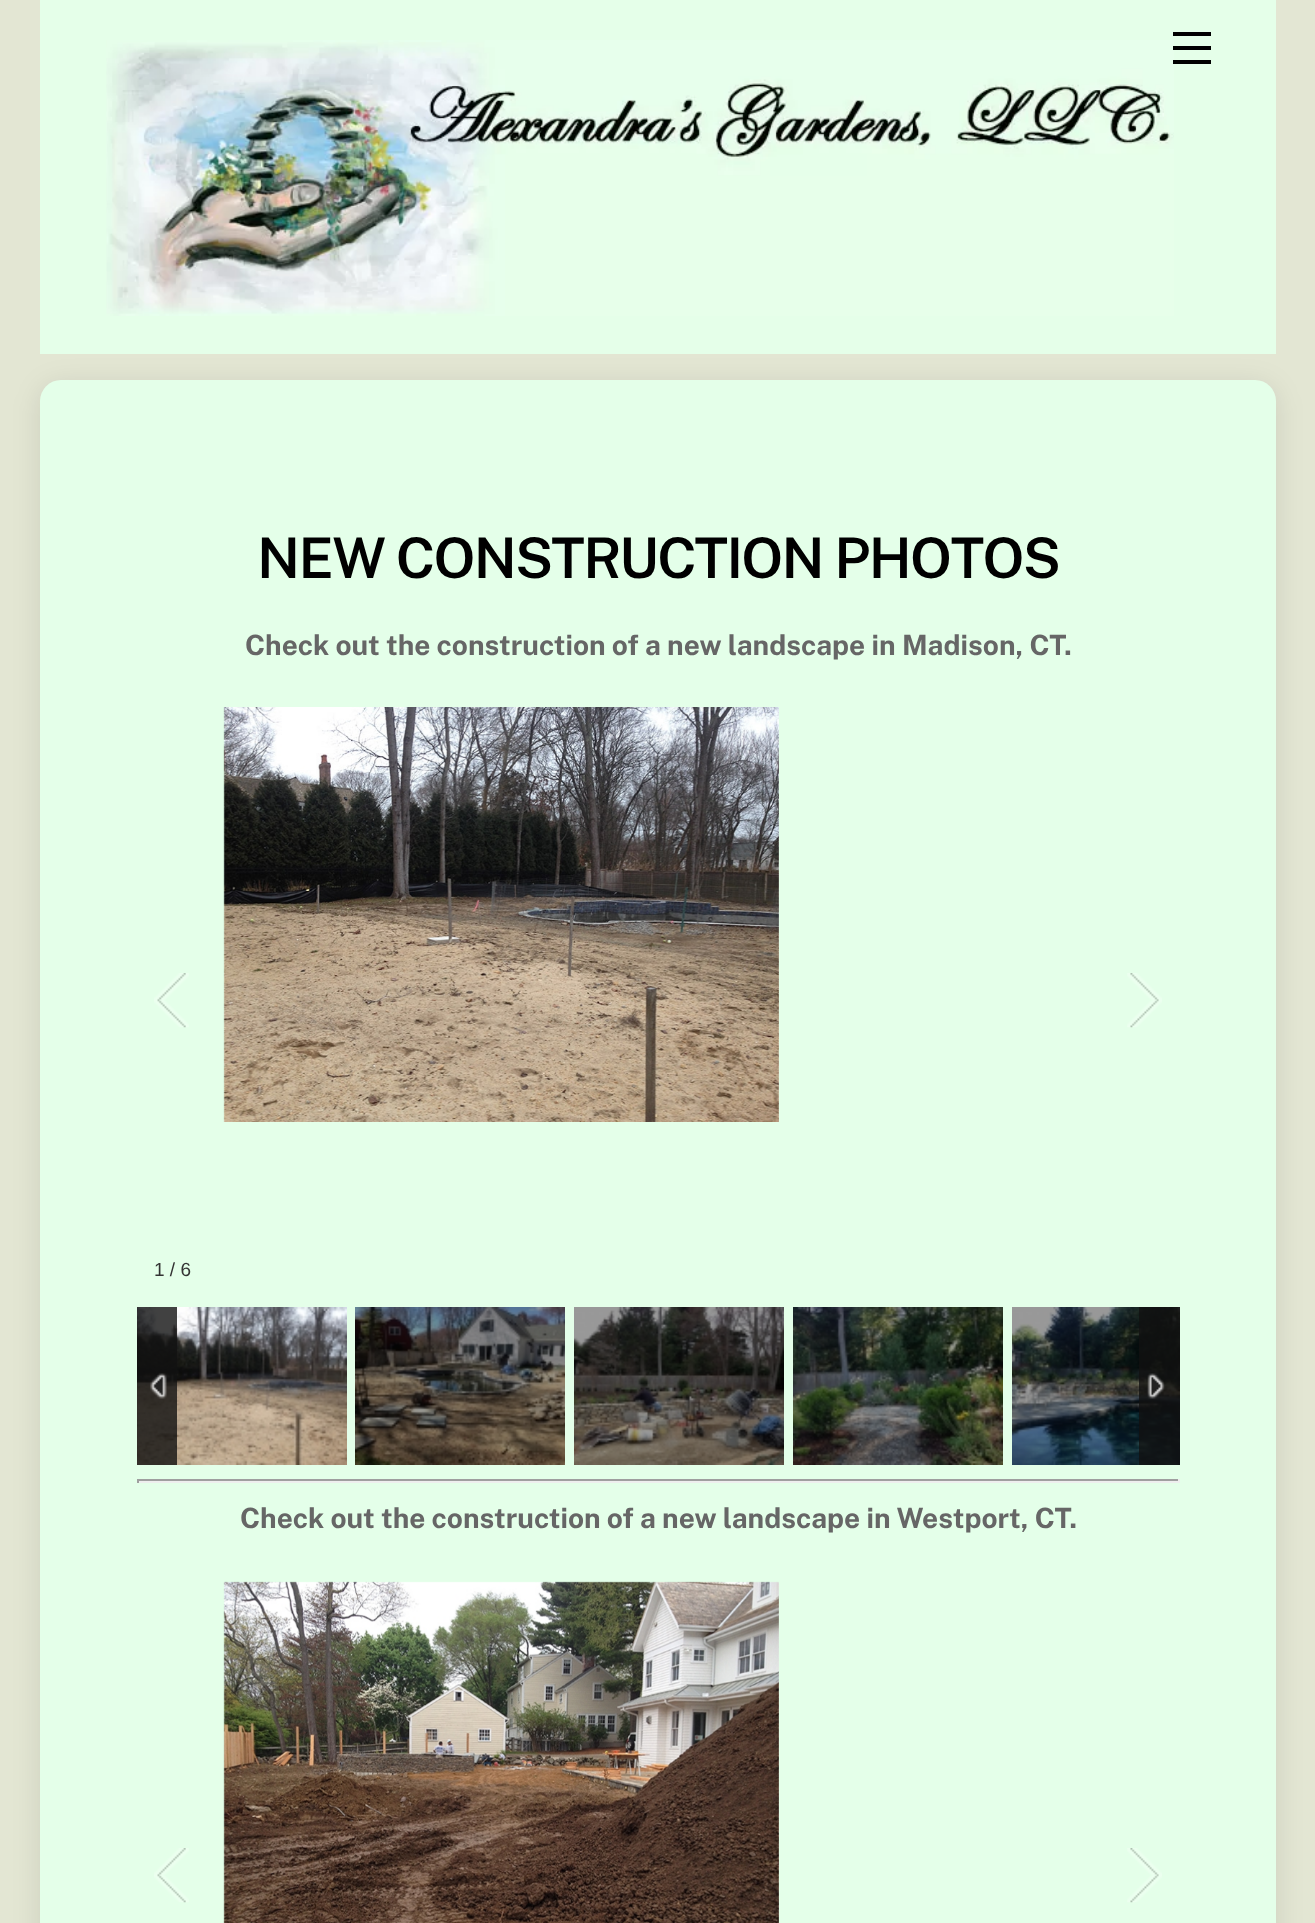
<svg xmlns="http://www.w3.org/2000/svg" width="1315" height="1923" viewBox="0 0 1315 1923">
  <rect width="100%" height="100%" fill="#e3e6d3"/>
  <path d="M40 0h1236v354H40z" fill="#e5ffe9"/>
  <image x="106" y="40" width="1068" height="276" href="img/1.png"/>
  <path d="M1173 60h38v4H1173z" fill="#000"/>
  <path d="M1173 32h38v4H1173z" fill="#000"/>
  <path d="M1173 46h38v4H1173z" fill="#000"/>
  <rect x="40" y="385" width="1236" height="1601" rx="21" fill="#0000001a" filter="blur(14px)"/>
  <rect x="40" y="380" width="1236" height="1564" rx="21" fill="#e4ffe9"/>
  <image x="223" y="707" width="556" height="415" href="img/2.png"/>
  <image x="154" y="973" width="35" height="55" href="img/3.png"/>
  <image x="1127" y="973" width="35" height="55" href="img/4.png"/>
  <image x="137" y="1307" width="210" height="158" href="img/5.png"/>
  <path d="M355 1307h210v158H355z" fill="#000"/>
  <image x="355" y="1307" width="210" height="158" href="img/6.png"/>
  <path d="M574 1307h210v158H574z" fill="#000"/>
  <image x="574" y="1307" width="210" height="158" href="img/7.png"/>
  <path d="M793 1307h210v158H793z" fill="#000"/>
  <image x="793" y="1307" width="210" height="158" href="img/8.png"/>
  <path d="M1012 1307h168v158H1012z" fill="#000"/>
  <image x="1012" y="1307" width="168" height="158" href="img/9.png"/>
  <path d="M137 1307h40v158H137z" fill="#111111cc"/>
  <image x="150" y="1373" width="17" height="26" href="img/10.png"/>
  <path d="M1139 1307h41v158H1139z" fill="#111111cc"/>
  <image x="1147" y="1373" width="18" height="26" href="img/11.png"/>
  <path d="M137 1479h1043v2H137z" fill="#9f9f9f"/>
  <path d="M1178 1479h2v4H1178z" fill="#eee"/>
  <path d="M137 1481h1043v2H137z" fill="#eee"/>
  <path d="M137 1479h2v4H137z" fill="#9f9f9f"/>
  <image x="223" y="1581" width="556" height="342" href="img/12.png"/>
  <image x="154" y="1848" width="35" height="55" href="img/3.png"/>
  <image x="1127" y="1848" width="35" height="55" href="img/4.png"/>
  <text x="257" y="578" font-family="Public Sans" font-size="56" font-weight="600" letter-spacing="-1.7" fill="#000">NEW CONSTRUCTION PHOTOS</text>
  <text x="245" y="655" font-family="Public Sans" font-size="28" font-weight="bold" fill="#666">Check out the construction of a new landscape in Madison, CT.</text>
  <text x="154" y="1276" font-family="Liberation Sans" font-size="19" fill="#333">1 / 6</text>
  <text x="240" y="1528" font-family="Public Sans" font-size="28" font-weight="bold" fill="#666">Check out the construction of a new landscape in Westport, CT.</text>
</svg>
